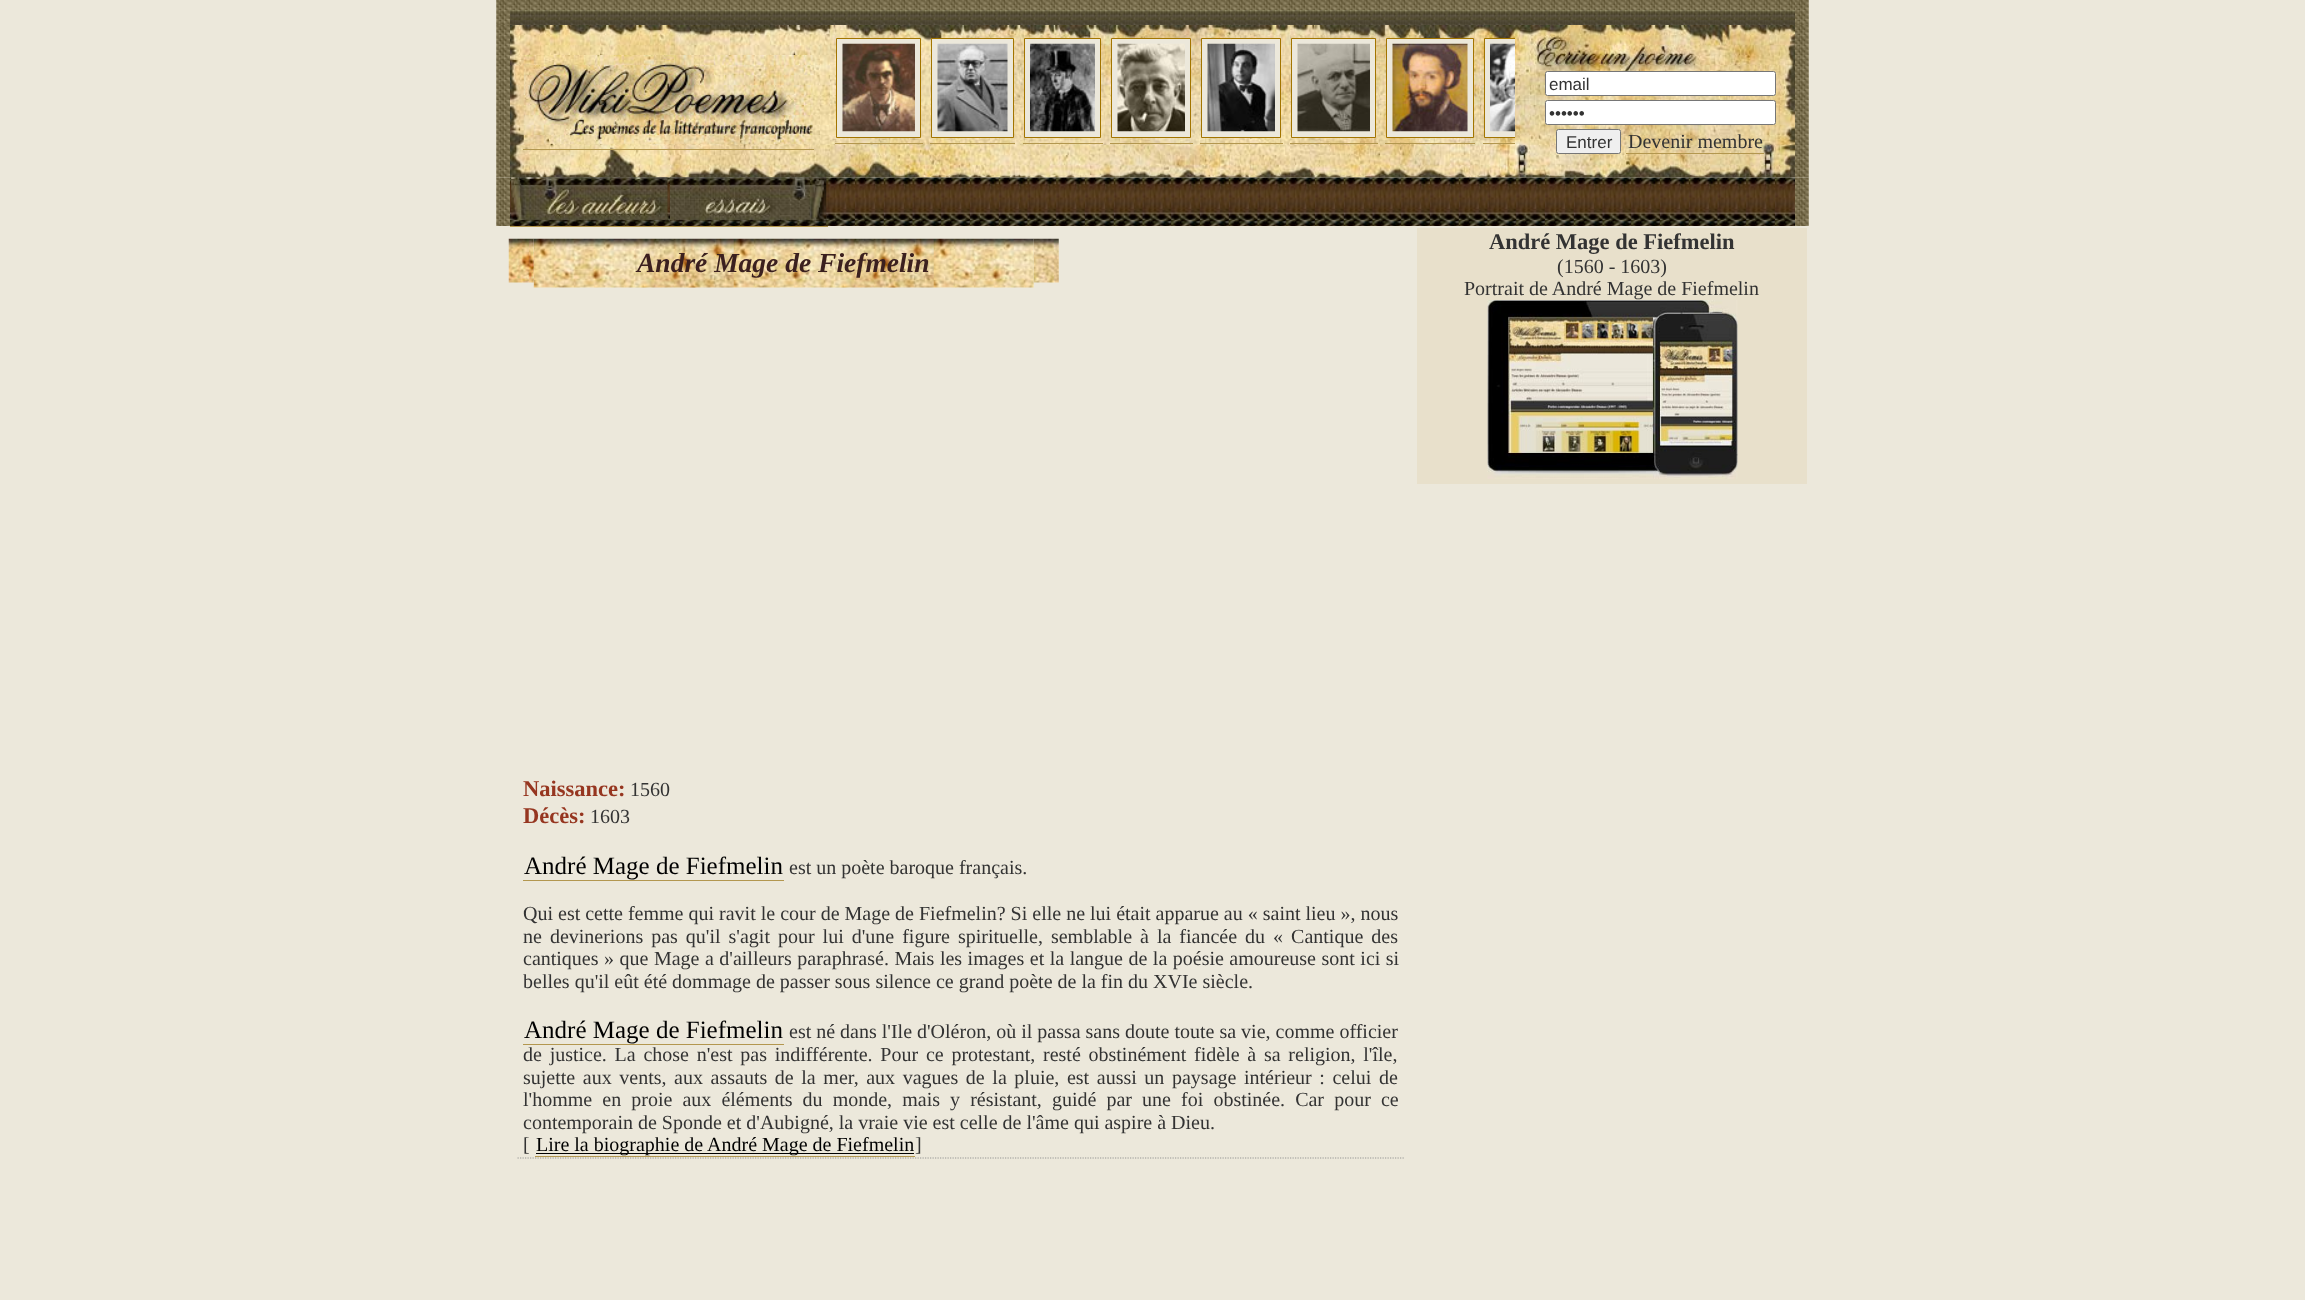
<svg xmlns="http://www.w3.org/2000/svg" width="2305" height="1300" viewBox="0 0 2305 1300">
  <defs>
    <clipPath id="clip1"><path d="M825 28h690v147H825z"/></clipPath>
  </defs>
  <rect width="100%" height="100%" fill="#ece8db"/>
  <image x="496" y="0" width="14" height="25" href="img/1.png"/>
  <image x="510" y="0" width="1285" height="25" href="img/2.png"/>
  <image x="1795" y="0" width="14" height="25" href="img/3.png"/>
  <image x="496" y="25" width="14" height="153" href="img/4.png"/>
  <image x="510" y="25" width="1285" height="153" href="img/5.png"/>
  <image x="523" y="55" width="290" height="89" href="img/6.png"/>
  <path d="M523 149h291v1H523z" fill="#b3974f"/>
  <path d="M836.5 38.5h84v99H836.5z" fill="#ece8db" stroke="#a37500"/>
  <image x="842" y="43" width="73" height="89" href="img/7.png"/>
  <path d="M835 143h88v1H835z" fill="#b3974f"/>
  <path d="M931.5 38.5h82v99H931.5z" fill="#ece8db" stroke="#a37500"/>
  <image x="937" y="43" width="71" height="89" href="img/8.png"/>
  <path d="M930 143h85v1H930z" fill="#b3974f"/>
  <path d="M1024.5 38.5h76v99H1024.5z" fill="#ece8db" stroke="#a37500"/>
  <image x="1030" y="43" width="65" height="89" href="img/9.png"/>
  <path d="M1023 143h80v1H1023z" fill="#b3974f"/>
  <path d="M1111.5 38.5h79v99H1111.5z" fill="#ece8db" stroke="#a37500"/>
  <image x="1117" y="43" width="68" height="89" href="img/10.png"/>
  <path d="M1110 143h83v1H1110z" fill="#b3974f"/>
  <path d="M1201.5 38.5h79v99H1201.5z" fill="#ece8db" stroke="#a37500"/>
  <image x="1207" y="43" width="68" height="89" href="img/11.png"/>
  <path d="M1200 143h83v1H1200z" fill="#b3974f"/>
  <path d="M1291.5 38.5h84v99H1291.5z" fill="#ece8db" stroke="#a37500"/>
  <image x="1297" y="43" width="73" height="89" href="img/12.png"/>
  <path d="M1290 143h88v1H1290z" fill="#b3974f"/>
  <path d="M1386.5 38.5h87v99H1386.5z" fill="#ece8db" stroke="#a37500"/>
  <image x="1392" y="43" width="76" height="89" href="img/13.png"/>
  <path d="M1385 143h90v1H1385z" fill="#b3974f"/>
  <path d="M1485 39h30v98H1485z" fill="#ece8db"/>
  <path d="M1483 143h32v1H1483z" fill="#b3974f"/>
  <rect x="1545.5" y="71.5" width="230" height="24" rx="2" fill="#fff" stroke="#767676"/>
  <rect x="1545.5" y="100.5" width="230" height="24" rx="2" fill="#fff" stroke="#767676"/>
  <rect x="1556.5" y="129.5" width="64" height="24" rx="2" fill="#efefef" stroke="#767676"/>
  <path d="M1626 153h138v1H1626z" fill="#b3974f"/>
  <image x="1795" y="25" width="14" height="153" href="img/15.png"/>
  <image x="496" y="177" width="14" height="49" href="img/16.png"/>
  <image x="510" y="177" width="1285" height="49" href="img/17.png"/>
  <image x="511" y="177" width="157" height="45" href="img/18.png"/>
  <path d="M510 226h318v1H510z" fill="#b3974f"/>
  <image x="670" y="177" width="157" height="45" href="img/19.png"/>
  <image x="1795" y="177" width="14" height="49" href="img/20.png"/>
  <image x="533" y="238" width="501" height="50" href="img/22.png"/>
  <image x="508" y="238" width="26" height="45" href="img/21.png"/>
  <image x="1033" y="238" width="26" height="45" href="img/23.png"/>
  <path d="M517.5 1158H1404" fill="none" stroke="#969696" stroke-width="1.2" stroke-dasharray="1.25 1.25"/>
  <path d="M523 880h261v1H523z" fill="#b3974f"/>
  <path d="M523 1044h261v1H523z" fill="#b3974f"/>
  <path d="M535 1156h380v1H535z" fill="#b3974f"/>
  <path d="M536 1153h378v1H536z" fill="#000"/>
  <path d="M1417 228h390v256H1417z" fill="#e8e0cb"/>
  <image x="1487" y="300" width="251" height="179" href="img/24.png"/>
  <g font-family="Liberation Sans" font-size="17" fill="#333">
    <text x="1549" y="90">email</text>
    <text x="1549" y="119">••••••</text>
    <text x="1566" y="148">Entrer</text>
  </g>
  <g clip-path="url(#clip1)">
    <path d="M1484.5 38.5h96v99H1484.5z" fill="none" stroke="#a37500"/>
  </g>
  <image x="1490" y="43" width="25" height="89" href="img/14.png"/>
  <text x="1628" y="148" font-family="Liberation Serif" font-size="20" fill="#333">Devenir membre</text>
  <text x="637" y="272" font-family="Liberation Serif" font-size="27.5" font-weight="bold" font-style="italic" fill="#3b201f">André Mage de Fiefmelin</text>
  <text x="523" y="796" font-family="Liberation Serif" font-size="22.5" font-weight="bold" fill="#963620">Naissance:</text>
  <text x="630" y="796" font-family="Liberation Serif" font-size="20" fill="#333">1560</text>
  <text x="523" y="823" font-family="Liberation Serif" font-size="22.5" font-weight="bold" fill="#963620">Décès:</text>
  <text x="590" y="823" font-family="Liberation Serif" font-size="20" fill="#333">1603</text>
  <text x="524" y="874" font-family="Liberation Serif" font-size="25" fill="#000">André Mage de Fiefmelin</text>
  <g font-family="Liberation Serif" font-size="20" fill="#333">
    <text x="789" y="874">est un poète baroque français.</text>
    <text x="523" y="920">Qui est cette femme qui ravit le cour de Mage de Fiefmelin? Si elle ne lui était apparue au « saint lieu », nous</text>
    <text x="523" y="943" word-spacing="3">ne devinerions pas qu'il s'agit pour lui d'une figure spirituelle, semblable à la fiancée du « Cantique des</text>
    <text x="523" y="965" word-spacing="0.5">cantiques » que Mage a d'ailleurs paraphrasé. Mais les images et la langue de la poésie amoureuse sont ici si</text>
    <text x="523" y="988">belles qu'il eût été dommage de passer sous silence ce grand poète de la fin du XVIe siècle.</text>
  </g>
  <text x="524" y="1038" font-family="Liberation Serif" font-size="25" fill="#000">André Mage de Fiefmelin</text>
  <g font-family="Liberation Serif" font-size="20" fill="#333">
    <text x="789" y="1038">est né dans l'Ile d'Oléron, où il passa sans doute toute sa vie, comme officier</text>
    <text x="523" y="1061" word-spacing="2.75">de justice. La chose n'est pas indifférente. Pour ce protestant, resté obstinément fidèle à sa religion, l'île,</text>
    <text x="523" y="1084" word-spacing="2.6">sujette aux vents, aux assauts de la mer, aux vagues de la pluie, est aussi un paysage intérieur : celui de</text>
    <text x="523" y="1106" word-spacing="5.1">l'homme en proie aux éléments du monde, mais y résistant, guidé par une foi obstinée. Car pour ce</text>
    <text x="523" y="1129">contemporain de Sponde et d'Aubigné, la vraie vie est celle de l'âme qui aspire à Dieu.</text>
    <text x="523" y="1151">[</text>
  </g>
  <text x="536" y="1151" font-family="Liberation Serif" font-size="20" fill="#000">Lire la biographie de André Mage de Fiefmelin</text>
  <text x="915" y="1151" font-family="Liberation Serif" font-size="20" fill="#333">]</text>
  <text x="1489" y="249" font-family="Liberation Serif" font-size="22.5" font-weight="bold" fill="#333">André Mage de Fiefmelin</text>
  <g font-family="Liberation Serif" font-size="20" fill="#333">
    <text x="1557" y="273">(1560 - 1603)</text>
    <text x="1464" y="295">Portrait de André Mage de Fiefmelin</text>
  </g>
</svg>
